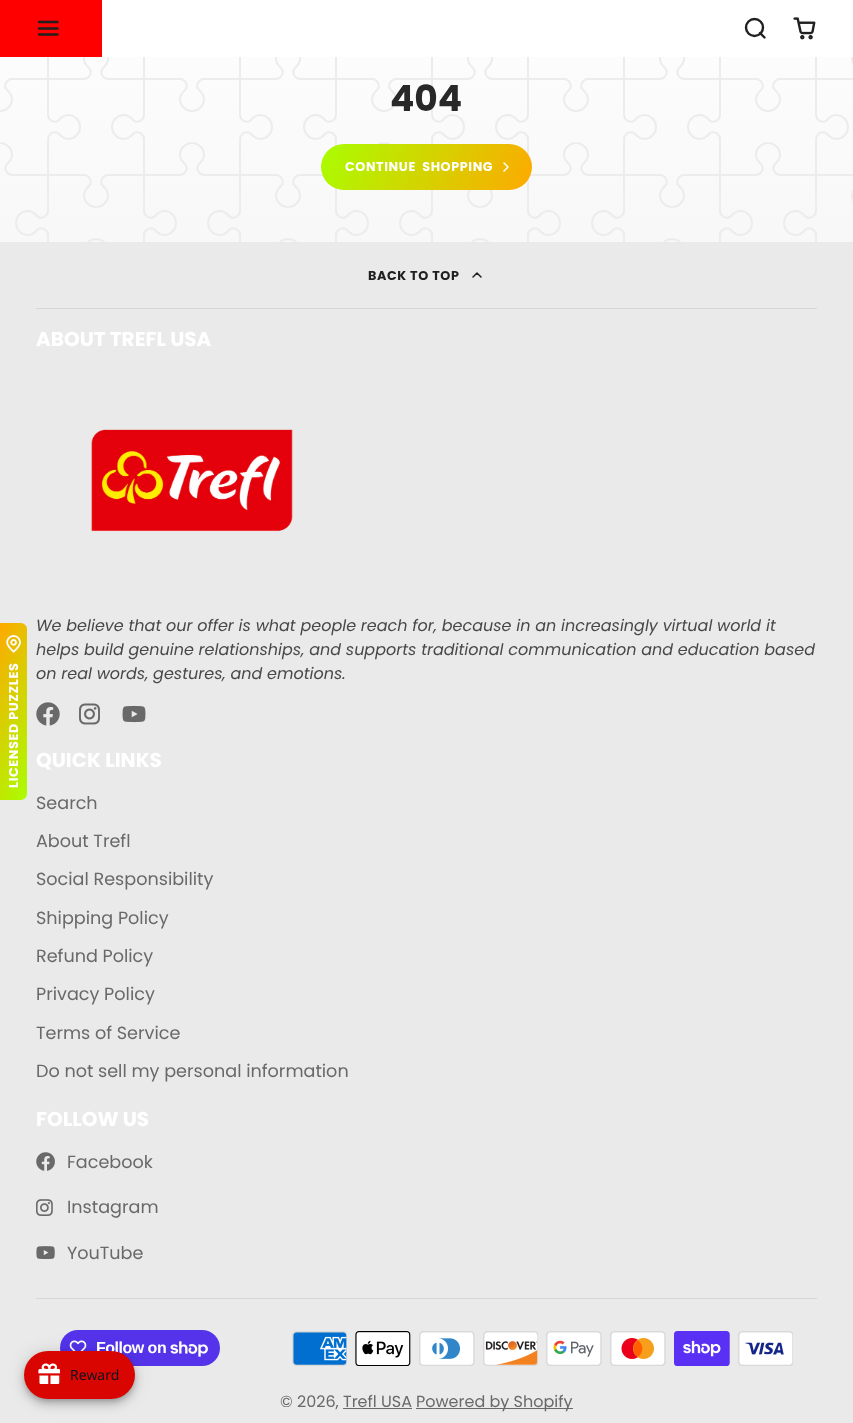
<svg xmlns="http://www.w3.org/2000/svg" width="853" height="1423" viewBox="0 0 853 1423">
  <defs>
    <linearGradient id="g1" gradientUnits="userSpaceOnUse" x1="426" y1="-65" x2="427" y2="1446"><stop offset="0" stop-color="#fff"/><stop offset="0.98" stop-color="#dcdcdc"/></linearGradient>
    <linearGradient id="g2" gradientUnits="userSpaceOnUse" x1="331" y1="122" x2="522" y2="212"><stop offset="0" stop-color="#a9fe00"/><stop offset="1" stop-color="#fea900"/></linearGradient>
    <linearGradient id="g3" gradientUnits="userSpaceOnUse" x1="59" y1="733" x2="-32" y2="690"><stop offset="0" stop-color="#a9fe00"/><stop offset="1" stop-color="#fea900"/></linearGradient>
  </defs>
  <rect width="100%" height="100%" fill="#fff"/>
  <path d="M0 57h853v185H0z" fill="url(#g1)"/>
  <image x="0" y="57" width="853" height="185" href="img/1.png"/>
  <path d="M0 0h102v57H0z" fill="#f00"/>
  <path d="M39 28.5H57.5M39 22H57.5M39 34.5H57.5" fill="none" stroke="#202020" stroke-width="2.4" stroke-linecap="round" stroke-linejoin="round"/>
  <circle cx="754.5" cy="27.5" r="8.5" fill="none" stroke="#202020" stroke-width="2.4"/>
  <path d="M764.5 37.5L760 33" fill="none" stroke="#202020" stroke-width="2.4" stroke-linecap="round" stroke-linejoin="round"/>
  <image x="793" y="17" width="23" height="23" href="img/2.png"/>
  <rect x="321" y="144" width="211" height="46" rx="23" fill="url(#g2)"/>
  <path d="M504 171L508 167L504 163" fill="none" stroke="#fff" stroke-width="1.5" stroke-linecap="round" stroke-linejoin="round"/>
  <path d="M0 242h853v1181H0z" fill="#eaeaea"/>
  <path d="M21 800H0V623H21C24 623 27 626 27 629V794C27 797 24 800 21 800Z" fill="url(#g3)"/>
  <image x="6" y="635" width="15" height="18" href="img/3.png"/>
  <path d="M481 277L477 273L473 277" fill="none" stroke="#202020" stroke-width="1.5" stroke-linecap="round" stroke-linejoin="round"/>
  <path d="M36 308h781v1H36z" fill="#d6d6d6"/>
  <image x="91" y="429" width="202" height="103" href="img/4.png"/>
  <image x="36" y="702" width="24" height="24" href="img/5.png"/>
  <image x="79" y="703" width="21" height="22" href="img/6.png"/>
  <image x="122" y="705" width="24" height="18" href="img/7.png"/>
  <image x="36" y="1152" width="19" height="19" href="img/8.png"/>
  <image x="36" y="1199" width="17" height="17" href="img/9.png"/>
  <image x="36" y="1246" width="19" height="14" href="img/10.png"/>
  <path d="M36 1298h781v1H36z" fill="#d6d6d6"/>
  <rect x="60" y="1330" width="160" height="36" rx="18" fill="#5433eb"/>
  <image x="69" y="1340" width="18" height="11" href="img/11.png"/>
  <image x="170" y="1341" width="38" height="16" href="img/12.png"/>
  <image x="292" y="1331" width="55" height="35" href="img/13.png"/>
  <image x="355" y="1331" width="56" height="35" href="img/14.png"/>
  <image x="419" y="1331" width="56" height="35" href="img/15.png"/>
  <image x="483" y="1331" width="55" height="35" href="img/16.png"/>
  <image x="546" y="1331" width="56" height="35" href="img/17.png"/>
  <image x="610" y="1331" width="56" height="35" href="img/18.png"/>
  <image x="674" y="1331" width="56" height="35" href="img/19.png"/>
  <image x="738" y="1331" width="55" height="35" href="img/20.png"/>
  <path d="M416 1408h157v1H416z" fill="#696969"/>
  <path d="M343 1408h69v1H343z" fill="#696969"/>
  <rect x="24" y="1352" width="111" height="48" rx="24" fill="#0000001f" filter="blur(9px)"/>
  <rect x="24" y="1357" width="111" height="48" rx="24" fill="#00000024" filter="blur(5px)"/>
  <rect x="25" y="1355" width="109" height="46" rx="23" fill="#00000033" filter="blur(2.5px)"/>
  <text x="390" y="111" font-family="Poppins" font-size="36" font-weight="bold" fill="#282828">404</text>
  <g font-family="Poppins" font-size="12.75" font-weight="bold" letter-spacing="0.6" fill="#fff">
    <text x="345" y="171" word-spacing="3">CONTINUE SHOPPING</text>
    <text x="18" y="788" transform="rotate(-90 18 788)">LICENSED PUZZLES</text>
  </g>
  <text x="368" y="280" font-family="Poppins" font-size="12.75" font-weight="bold" letter-spacing="0.6" fill="#202020">BACK TO TOP</text>
  <text x="36" y="346" font-family="Poppins" font-size="20" font-weight="bold" fill="#fff">ABOUT TREFL USA</text>
  <g font-family="Poppins" font-size="16" font-style="italic" fill="#484848">
    <text x="36" y="631">We believe that our offer is what people reach for, because in an increasingly virtual world it</text>
    <text x="36" y="655">helps build genuine relationships, and supports traditional communication and education based</text>
    <text x="36" y="679">on real words, gestures, and emotions.</text>
  </g>
  <text x="36" y="767" font-family="Poppins" font-size="20" font-weight="bold" fill="#fff">QUICK LINKS</text>
  <g font-family="Poppins" font-size="17.6" fill="#696969">
    <text x="36" y="809">Search</text>
    <text x="36" y="847">About Trefl</text>
    <text x="36" y="885">Social Responsibility</text>
    <text x="36" y="924">Shipping Policy</text>
    <text x="36" y="962">Refund Policy</text>
    <text x="36" y="1000">Privacy Policy</text>
    <text x="36" y="1039">Terms of Service</text>
    <text x="36" y="1077">Do not sell my personal information</text>
  </g>
  <text x="36" y="1126" font-family="Poppins" font-size="20" font-weight="bold" fill="#fff">FOLLOW US</text>
  <g font-family="Poppins" font-size="17.6" fill="#696969">
    <text x="67" y="1168">Facebook</text>
    <text x="67" y="1213">Instagram</text>
    <text x="67" y="1259">YouTube</text>
  </g>
  <text x="96" y="1353" font-family="Liberation Sans" font-size="16" font-weight="bold" letter-spacing="-0.5" fill="#fff">Follow on</text>
  <g font-family="Poppins" font-size="16" fill="#696969">
    <text x="280" y="1407">© 2026, Trefl USA</text>
    <text x="416" y="1407">Powered by Shopify</text>
  </g>
  <rect x="24" y="1351" width="111" height="48" rx="24" fill="#d80500"/>
  <image x="38" y="1363" width="22" height="21" href="img/21.png"/>
  <text x="70" y="1380" font-family="Open Sans" font-size="14" fill="#011322">Reward</text>
</svg>
